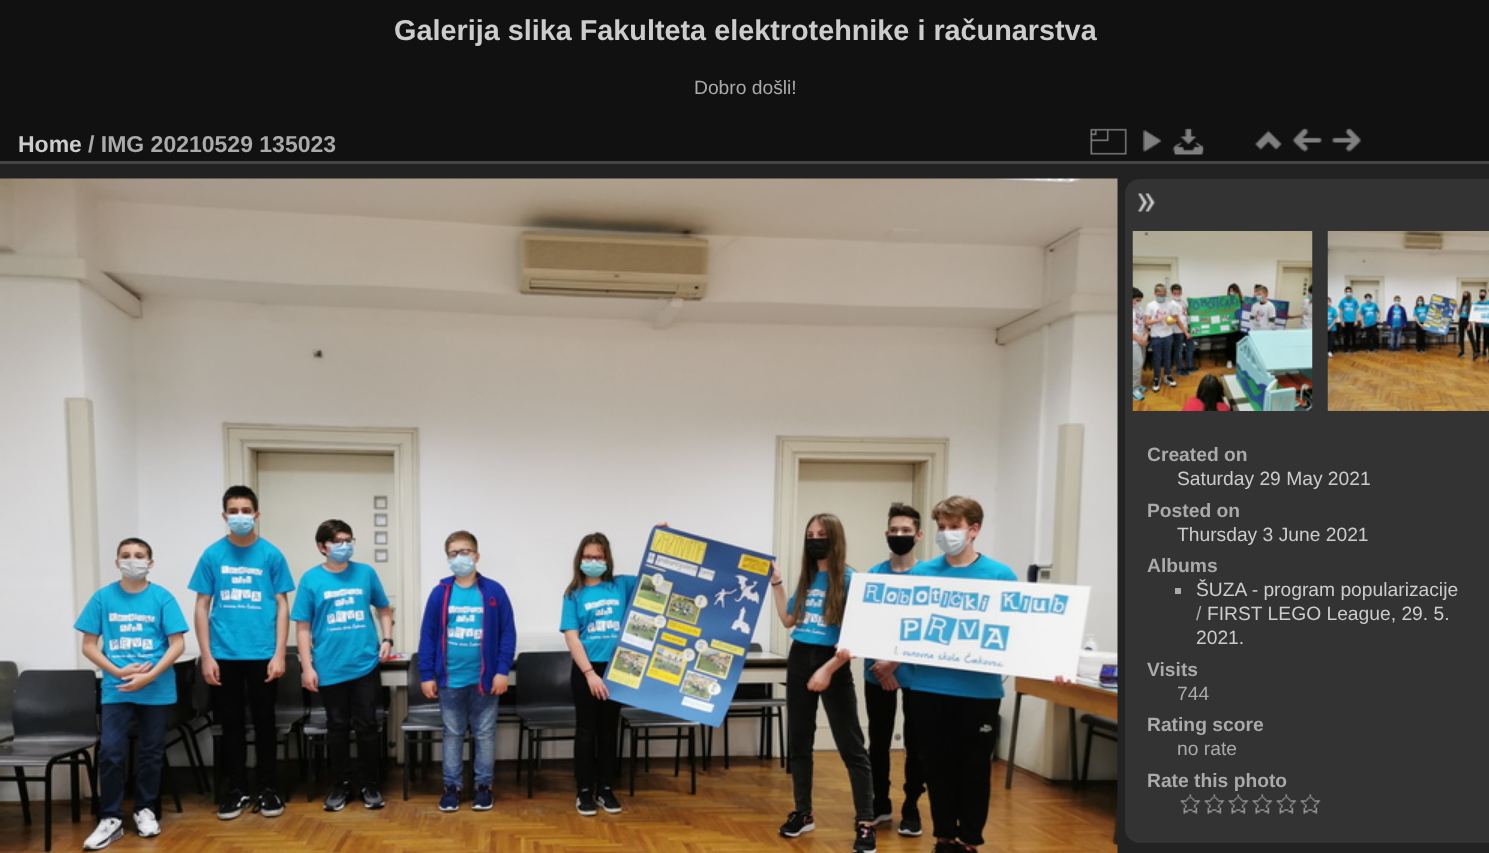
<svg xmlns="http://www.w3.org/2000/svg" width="1489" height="853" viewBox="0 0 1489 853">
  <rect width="100%" height="100%" fill="#111"/>
  <path d="M0 164h1489v689H0z" fill="#222"/>
  <path d="M0 161h1489v3H0z" fill="#444"/>
  <image x="1090" y="128" width="37" height="27" href="img/1.png"/>
  <image x="1142" y="130" width="20" height="22" href="img/2.png"/>
  <image x="1172" y="128" width="33" height="27" href="img/3.png"/>
  <image x="1255" y="130" width="27" height="21" href="img/4.png"/>
  <image x="1292" y="128" width="30" height="24" href="img/5.png"/>
  <image x="1331" y="128" width="30" height="24" href="img/6.png"/>
  <image x="0" y="178" width="1118" height="675" href="img/7.png"/>
  <path d="M1140 179H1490V843H1140C1131.5 843 1125 836.5 1125 828V194C1125 185.5 1131.5 179 1140 179Z" fill="#333"/>
  <image x="1137" y="193" width="19" height="19" href="img/8.png"/>
  <image x="1132" y="231" width="181" height="180" href="img/9.png"/>
  <image x="1327" y="231" width="162" height="180" href="img/10.png"/>
  <path d="M1175 588h6v6H1175z" fill="#aaa"/>
  <image x="1180" y="794" width="21" height="20" href="img/11.png"/>
  <image x="1204" y="794" width="21" height="20" href="img/11.png"/>
  <image x="1228" y="794" width="21" height="20" href="img/12.png"/>
  <image x="1252" y="794" width="21" height="20" href="img/12.png"/>
  <image x="1276" y="794" width="21" height="20" href="img/13.png"/>
  <image x="1300" y="794" width="21" height="20" href="img/11.png"/>
  <text x="394" y="40" font-family="Liberation Sans" font-size="28.8" font-weight="bold" fill="#ccc">Galerija slika Fakulteta elektrotehnike i računarstva</text>
  <text x="694" y="94" font-family="Liberation Sans" font-size="19.25" fill="#aaa">Dobro došli!</text>
  <text x="18" y="152" font-family="Liberation Sans" font-size="23" font-weight="bold" fill="#ccc">Home</text>
  <text x="88" y="152" font-family="Liberation Sans" font-size="23" font-weight="bold" fill="#aaa">/ IMG 20210529 135023</text>
  <text x="1147" y="461" font-family="Liberation Sans" font-size="19.25" font-weight="bold" fill="#aaa">Created on</text>
  <text x="1177" y="485" font-family="Liberation Sans" font-size="19.25" fill="#ccc">Saturday 29 May 2021</text>
  <text x="1147" y="517" font-family="Liberation Sans" font-size="19.25" font-weight="bold" fill="#aaa">Posted on</text>
  <text x="1177" y="541" font-family="Liberation Sans" font-size="19.25" fill="#ccc">Thursday 3 June 2021</text>
  <text x="1147" y="572" font-family="Liberation Sans" font-size="19.25" font-weight="bold" fill="#aaa">Albums</text>
  <text x="1196" y="596" font-family="Liberation Sans" font-size="19.25" fill="#ccc">ŠUZA - program popularizacije</text>
  <text x="1196" y="620" font-family="Liberation Sans" font-size="19.25" fill="#aaa">/</text>
  <g font-family="Liberation Sans" font-size="19.25" fill="#ccc">
    <text x="1207" y="620">FIRST LEGO League, 29. 5.</text>
    <text x="1196" y="644">2021.</text>
  </g>
  <text x="1147" y="676" font-family="Liberation Sans" font-size="19.25" font-weight="bold" fill="#aaa">Visits</text>
  <text x="1177" y="700" font-family="Liberation Sans" font-size="19.25" fill="#aaa">744</text>
  <text x="1147" y="731" font-family="Liberation Sans" font-size="19.25" font-weight="bold" fill="#aaa">Rating score</text>
  <text x="1177" y="755" font-family="Liberation Sans" font-size="19.25" fill="#aaa">no rate</text>
  <text x="1147" y="787" font-family="Liberation Sans" font-size="19.25" font-weight="bold" fill="#aaa">Rate this photo</text>
</svg>
